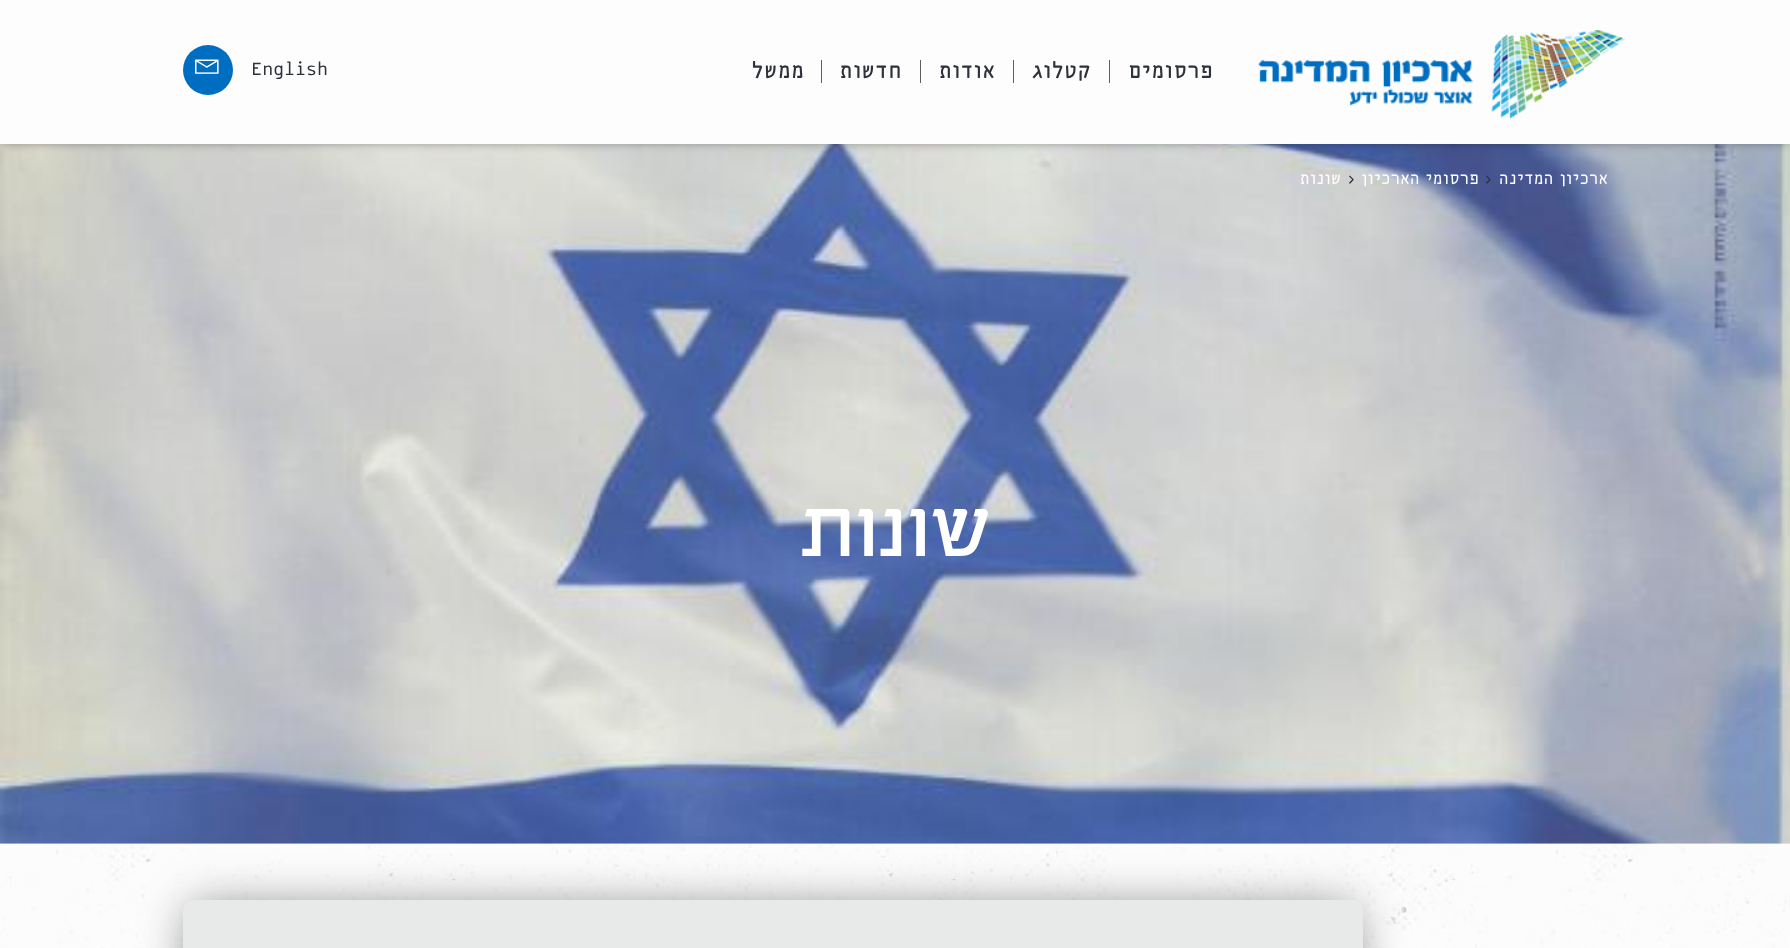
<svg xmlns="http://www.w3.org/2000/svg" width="1790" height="948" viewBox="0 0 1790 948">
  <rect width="100%" height="100%" fill="#fff"/>
  <image x="0" y="144" width="1790" height="700" href="img/3.png"/>
  <path d="M3 5h1785v139H3z" fill="#0000004d" filter="blur(4px)"/>
  <path d="M0 0h1790v144H0z" fill="#fdfdfd"/>
  <image x="1258" y="30" width="367" height="89" href="img/1.png"/>
  <path d="M1109 60h1v23H1109z" fill="#5f5f5f"/>
  <path d="M1013 60h1v23H1013z" fill="#5f5f5f"/>
  <path d="M920 60h1v23H920z" fill="#5f5f5f"/>
  <path d="M821 60h1v23H821z" fill="#5f5f5f"/>
  <circle cx="208" cy="70" r="25" fill="#006ec0"/>
  <image x="195" y="59" width="24" height="15" href="img/2.png"/>
  <image x="0" y="843" width="1790" height="105" href="img/4.png"/>
  <rect x="190" y="908" width="1165" height="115" rx="2.5" fill="#0000007d" filter="blur(24px)"/>
  <rect x="183" y="900" width="1180" height="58" rx="10" fill="#e8eae9"/>
  <image x="1401" y="900" width="6" height="13" href="img/5.png"/>
  <g font-family="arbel" font-size="24" font-weight="500" direction="rtl" fill="#2e323c">
    <text x="1213" y="78">פרסומים</text>
    <text x="1091" y="78">קטלוג</text>
    <text x="995" y="78">אודות</text>
    <text x="902" y="78">חדשות</text>
    <text x="804" y="78">ממשל</text>
  </g>
  <text x="251" y="75" font-family="arbel" font-size="20" fill="#2e323c">English</text>
  <text x="1608" y="184" font-family="arbel" font-size="18" direction="rtl" fill="#fff">ארכיון המדינה</text>
  <text x="1484" y="184" font-family="arbel" font-size="18" fill="#2e323c">&gt;</text>
  <text x="1479" y="184" font-family="arbel" font-size="18" direction="rtl" fill="#fff">פרסומי הארכיון</text>
  <text x="1347" y="184" font-family="arbel" font-size="18" fill="#2e323c">&gt;</text>
  <text x="1341" y="184" font-family="arbel" font-size="18" direction="rtl" fill="#fff">שונות</text>
  <text x="990" y="556" font-family="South" font-size="81" font-weight="300" direction="rtl" fill="#fff">שונות</text>
</svg>
